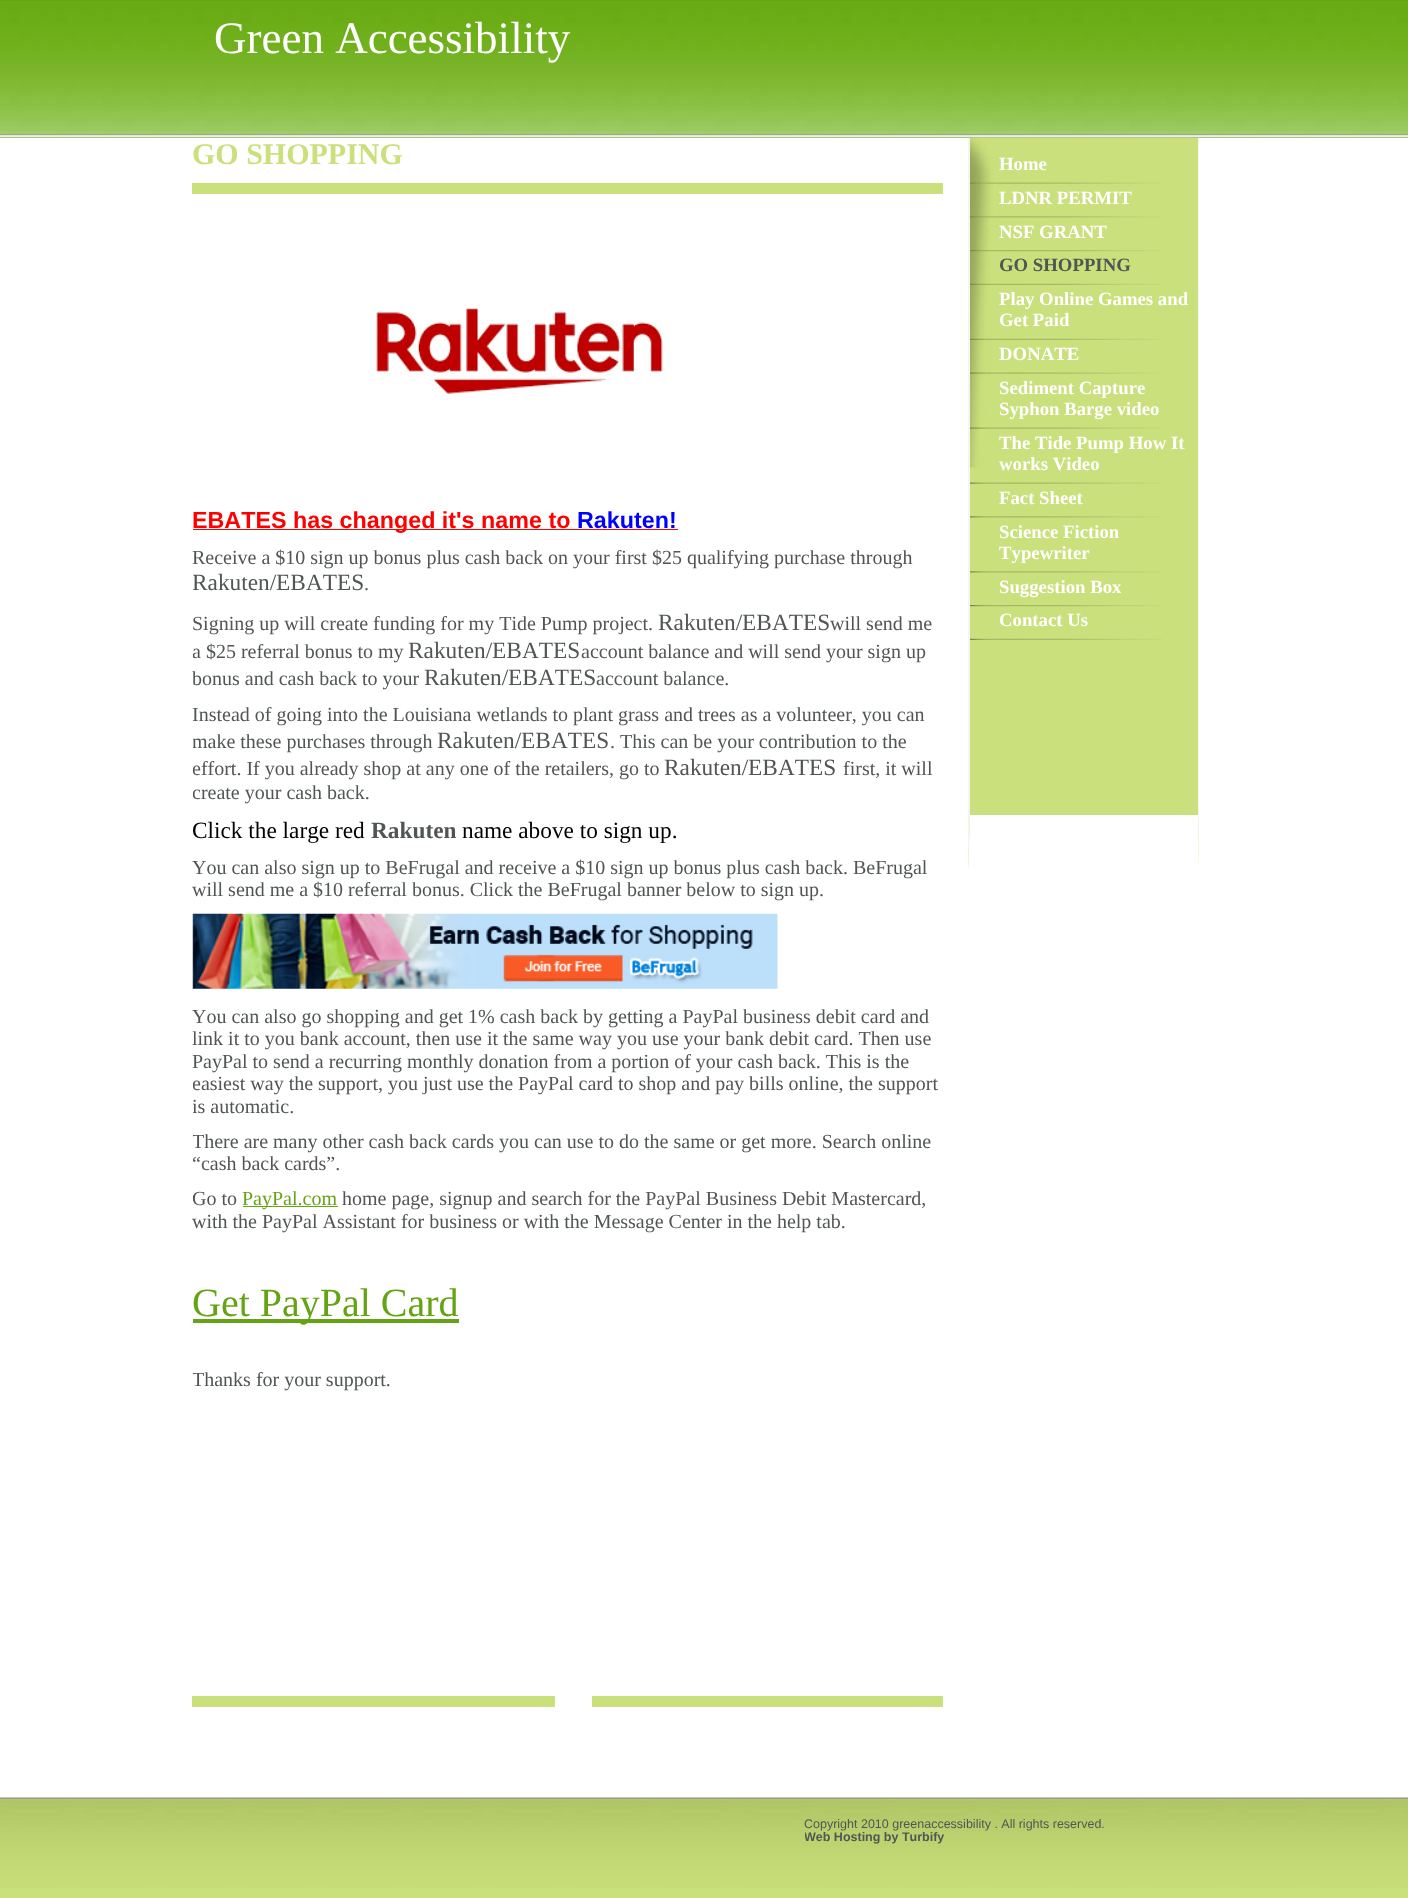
<svg xmlns="http://www.w3.org/2000/svg" width="1408" height="1898" viewBox="0 0 1408 1898">
  <style>*{font-kerning:none!important;font-variant-ligatures:none!important}</style>
  <defs>
    <clipPath id="clip1"><path d="M193 203h750v1356H193z"/></clipPath>
    <clipPath id="clip2"><path d="M805 1816h381v28H805z"/></clipPath>
  </defs>
  <rect width="100%" height="100%" fill="#fff"/>
  <path d="M0 0h1408v138H0z" fill="#65a511"/>
  <image x="0" y="1" width="1408" height="137" href="img/1.png"/>
  <path d="M192 183h751v11H192z" fill="#cae07c"/>
  <image x="376" y="308" width="289" height="92" href="img/2.png"/>
  <path d="M193 529h485v1H193z" fill="#f00"/>
  <image x="192" y="913" width="586" height="76" href="img/3.png"/>
  <path d="M243 1206h95v1H243z" fill="#64a313"/>
  <path d="M193 1319h266v4H193z" fill="#64a313"/>
  <path d="M192 1696h363v11H192z" fill="#cae07c"/>
  <path d="M592 1696h351v11H592z" fill="#cae07c"/>
  <path d="M968 138h231v733H968z" fill="#cae07c"/>
  <image x="970" y="137" width="223" height="331" href="img/4.png"/>
  <path d="M1199 138V871L1198 815V138Z" fill="#f4f4f4"/>
  <path d="M1199 871H968L970 815H1198Z" fill="#fff"/>
  <path d="M968 871V138H970V815Z" fill="#f4f4f4"/>
  <image x="970" y="182" width="191" height="2" href="img/5.png"/>
  <image x="970" y="216" width="191" height="2" href="img/6.png"/>
  <image x="970" y="250" width="192" height="2" href="img/7.png"/>
  <image x="970" y="283" width="192" height="2" href="img/8.png"/>
  <image x="970" y="338" width="192" height="2" href="img/9.png"/>
  <image x="970" y="372" width="191" height="2" href="img/10.png"/>
  <image x="970" y="427" width="191" height="2" href="img/11.png"/>
  <image x="970" y="482" width="191" height="2" href="img/12.png"/>
  <image x="970" y="516" width="191" height="2" href="img/13.png"/>
  <image x="970" y="571" width="191" height="2" href="img/13.png"/>
  <image x="970" y="605" width="192" height="2" href="img/14.png"/>
  <image x="970" y="638" width="192" height="2" href="img/15.png"/>
  <path d="M0 1888h1408v10H0z" fill="#cae07b"/>
  <image x="0" y="1797" width="1408" height="91" href="img/16.png"/>
  <text x="214" y="53" font-family="Liberation Serif" font-size="45" fill="#fff">Green Accessibility</text>
  <text x="192" y="164" font-family="Liberation Serif" font-size="30" font-weight="bold" fill="#cae07b">GO SHOPPING</text>
  <text x="192" y="528" font-family="Liberation Sans" font-size="23.3" font-weight="bold" fill="#f00">EBATES has changed it's name to</text>
  <text x="577" y="528" font-family="Liberation Sans" font-size="23.3" font-weight="bold" fill="#00f">Rakuten!</text>
  <text x="192" y="564" font-family="Liberation Serif" font-size="20" fill="#515655">Receive a $10 sign up bonus plus cash back on your first $25 qualifying purchase through</text>
  <g clip-path="url(#clip1)">
    <text x="192" y="590" font-family="Liberation Serif" font-size="23.3" fill="#515655">Rakuten/EBATES</text>
  </g>
  <g font-family="Liberation Serif" font-size="20" fill="#515655">
    <text x="364" y="590">.</text>
    <text x="192" y="630">Signing up will create funding for my Tide Pump project.</text>
  </g>
  <text x="658" y="630" font-family="Liberation Serif" font-size="23.3" fill="#515655">Rakuten/EBATES</text>
  <text x="830" y="630" font-family="Liberation Serif" font-size="20" fill="#515655"> will send me</text>
  <g clip-path="url(#clip1)">
    <text x="192" y="658" font-family="Liberation Serif" font-size="20" fill="#515655">a $25 referral bonus to my</text>
  </g>
  <text x="408" y="658" font-family="Liberation Serif" font-size="23.3" fill="#515655">Rakuten/EBATES</text>
  <g font-family="Liberation Serif" font-size="20" fill="#515655">
    <text x="581" y="658"> account balance and will send your sign up</text>
    <text x="192" y="685">bonus and cash back to your</text>
  </g>
  <text x="424" y="685" font-family="Liberation Serif" font-size="23.3" fill="#515655">Rakuten/EBATES</text>
  <g font-family="Liberation Serif" font-size="20" fill="#515655">
    <text x="596" y="685"> account balance.</text>
    <text x="192" y="721">Instead of going into the Louisiana wetlands to plant grass and trees as a volunteer, you can</text>
  </g>
  <g clip-path="url(#clip1)">
    <text x="192" y="748" font-family="Liberation Serif" font-size="20" fill="#515655">make these purchases through</text>
  </g>
  <text x="437" y="748" font-family="Liberation Serif" font-size="23.3" fill="#515655">Rakuten/EBATES</text>
  <text x="610" y="748" font-family="Liberation Serif" font-size="20" fill="#515655">. This can be your contribution to the</text>
  <g clip-path="url(#clip1)">
    <text x="192" y="775" font-family="Liberation Serif" font-size="20" fill="#515655">effort. If you already shop at any one of the retailers, go to</text>
  </g>
  <text x="664" y="775" font-family="Liberation Serif" font-size="23.3" fill="#515655">Rakuten/EBATES</text>
  <text x="843" y="775" font-family="Liberation Serif" font-size="20" fill="#515655">first, it will</text>
  <g clip-path="url(#clip1)">
    <text x="192" y="799" font-family="Liberation Serif" font-size="20" fill="#515655">create your cash back.</text>
    <text x="192" y="838" font-family="Liberation Serif" font-size="23.3" fill="#000">Click the large red</text>
  </g>
  <text x="371" y="838" font-family="Liberation Serif" font-size="23.3" font-weight="bold" fill="#515655">Rakuten</text>
  <text x="462" y="838" font-family="Liberation Serif" font-size="23.3" fill="#000">name above to sign up.</text>
  <g font-family="Liberation Serif" font-size="20" fill="#515655">
    <text x="192" y="874">You can also sign up to BeFrugal and receive a $10 sign up bonus plus cash back. BeFrugal</text>
    <text x="192" y="896">will send me a $10 referral bonus. Click the BeFrugal banner below to sign up.</text>
    <text x="192" y="1023">You can also go shopping and get 1% cash back by getting a PayPal business debit card and</text>
    <text x="192" y="1045">link it to you bank account, then use it the same way you use your bank debit card. Then use</text>
    <text x="192" y="1068">PayPal to send a recurring monthly donation from a portion of your cash back. This is the</text>
  </g>
  <g clip-path="url(#clip1)">
    <g font-family="Liberation Serif" font-size="20" fill="#515655">
      <text x="192" y="1090">easiest way the support, you just use the PayPal card to shop and pay bills online, the support</text>
      <text x="192" y="1113">is automatic.</text>
      <text x="192" y="1148">There are many other cash back cards you can use to do the same or get more. Search online</text>
    </g>
  </g>
  <text x="192" y="1170" font-family="Liberation Serif" font-size="20" fill="#515655">“cash back cards”.</text>
  <g clip-path="url(#clip1)">
    <text x="192" y="1205" font-family="Liberation Serif" font-size="20" fill="#515655">Go to</text>
  </g>
  <text x="242" y="1205" font-family="Liberation Serif" font-size="20" fill="#64a313">PayPal.com</text>
  <g font-family="Liberation Serif" font-size="20" fill="#515655">
    <text x="342" y="1205">home page, signup and search for the PayPal Business Debit Mastercard,</text>
    <text x="192" y="1228">with the PayPal Assistant for business or with the Message Center in the help tab. </text>
  </g>
  <text x="192" y="1316" font-family="Liberation Serif" font-size="40" fill="#64a313">Get PayPal Card</text>
  <g clip-path="url(#clip1)">
    <text x="192" y="1386" font-family="Liberation Serif" font-size="20" fill="#515655">Thanks for your support.</text>
  </g>
  <g font-family="Liberation Serif" font-size="18.75" font-weight="bold" fill="#fff">
    <text x="999" y="170">Home</text>
    <text x="999" y="204">LDNR PERMIT</text>
    <text x="999" y="238">NSF GRANT</text>
  </g>
  <text x="999" y="271" font-family="Liberation Serif" font-size="18.75" font-weight="bold" fill="#515655">GO SHOPPING</text>
  <g font-family="Liberation Serif" font-size="18.75" font-weight="bold" fill="#fff">
    <text x="999" y="305">Play Online Games and</text>
    <text x="999" y="326">Get Paid</text>
    <text x="999" y="360">DONATE</text>
    <text x="999" y="394">Sediment Capture</text>
    <text x="999" y="415">Syphon Barge video</text>
    <text x="999" y="449">The Tide Pump How It</text>
    <text x="999" y="470">works Video</text>
    <text x="999" y="504">Fact Sheet</text>
    <text x="999" y="538">Science Fiction</text>
    <text x="999" y="559">Typewriter</text>
    <text x="999" y="593">Suggestion Box</text>
    <text x="999" y="626">Contact Us</text>
  </g>
  <text x="804" y="1828" font-family="Liberation Sans" font-size="12.5" fill="#515655">Copyright 2010 greenaccessibility . All rights reserved.</text>
  <g clip-path="url(#clip2)">
    <text x="804" y="1841" font-family="Liberation Sans" font-size="12.5" font-weight="bold" fill="#515655">Web Hosting by Turbify</text>
  </g>
</svg>
